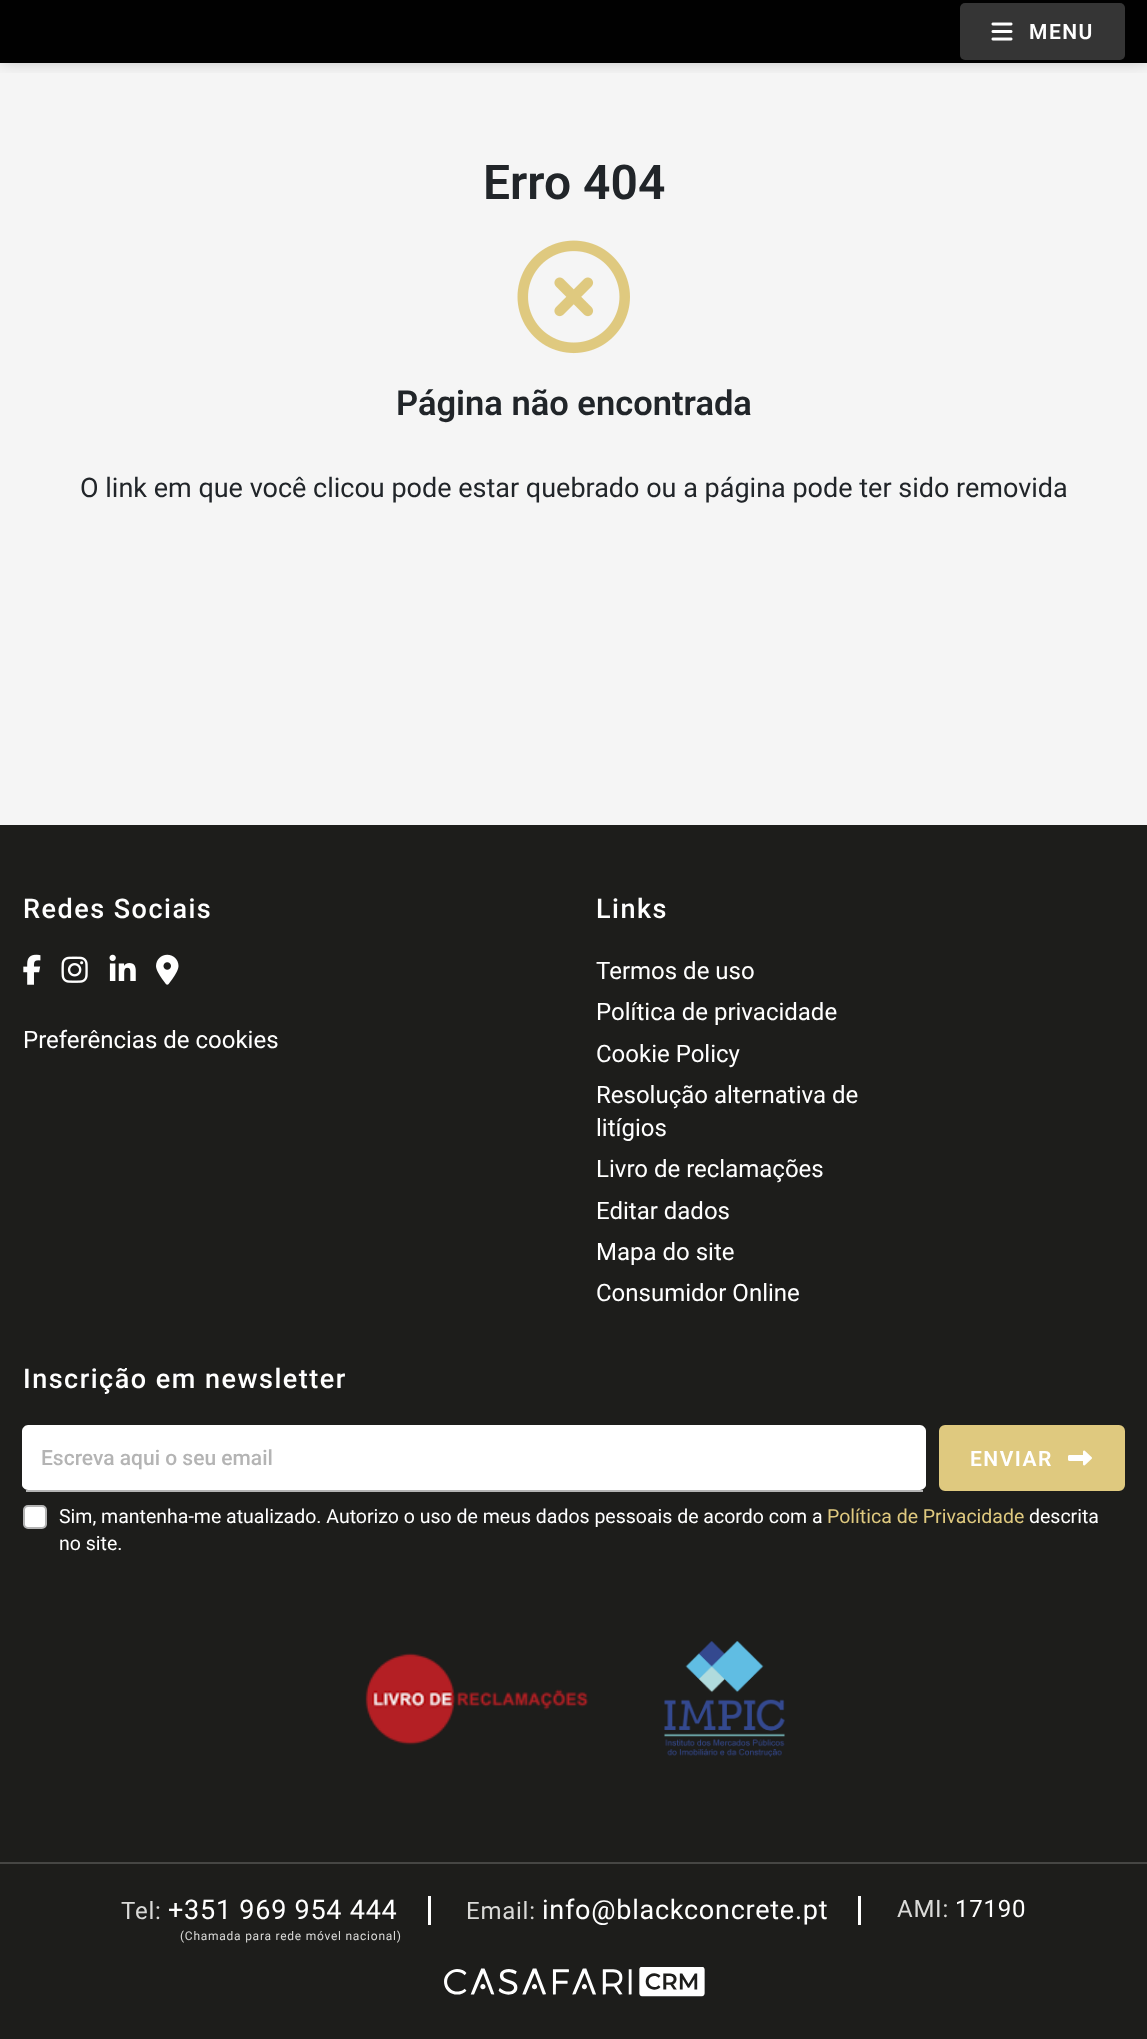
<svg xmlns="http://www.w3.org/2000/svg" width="1147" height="2039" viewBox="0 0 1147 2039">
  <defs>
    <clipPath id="clip1"><path d="M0 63h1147v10H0z"/></clipPath>
  </defs>
  <rect width="100%" height="100%" fill="#f5f5f5"/>
  <path d="M0 0h1147v63H0z" fill="#010101"/>
  <g clip-path="url(#clip1)">
    <path d="M0 -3h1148v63H0z" fill="#00000042" filter="blur(9px)"/>
  </g>
  <rect x="960" y="3" width="165" height="57" rx="5" fill="#353535"/>
  <image x="991" y="22" width="22" height="19" href="img/1.png"/>
  <image x="517" y="240" width="113" height="114" href="img/2.png"/>
  <path d="M0 825h1147v1214H0z" fill="#1d1d1b"/>
  <image x="23" y="954" width="18" height="31" href="img/3.png"/>
  <image x="61" y="956" width="27" height="27" href="img/4.png"/>
  <image x="109" y="954" width="27" height="27" href="img/5.png"/>
  <image x="156" y="954" width="23" height="31" href="img/6.png"/>
  <path d="M28 1425H920C923 1425 926 1428 926 1431V1485C926 1487 923 1490 920 1490H28C25 1490 22 1487 22 1485V1431C22 1428 25 1425 28 1425Z" fill="#fff"/>
  <path d="M26 1490h897v2H26z" fill="#b4b4b4"/>
  <rect x="940" y="1426" width="184" height="64" rx="5" fill="#dfc97f" stroke="#dfc97f" stroke-width="2"/>
  <image x="1068" y="1450" width="24" height="16" href="img/7.png"/>
  <rect x="24" y="1506" width="22" height="22" rx="4" fill="#fff" stroke="#b4b4b4" stroke-width="2"/>
  <image x="365" y="1653" width="224" height="92" href="img/8.png"/>
  <image x="664" y="1641" width="121" height="116" href="img/9.png"/>
  <path d="M0 1862h1147v2H0z" fill="#464644"/>
  <path d="M428 1896h3v29H428z" fill="#fff"/>
  <path d="M858 1896h3v29H858z" fill="#fff"/>
  <image x="444" y="1967" width="261" height="30" href="img/10.png"/>
  <text x="1029" y="39" font-family="Roboto" font-size="21" font-weight="600" letter-spacing="1.5" fill="#fff">MENU</text>
  <text x="483" y="199" font-family="Roboto" font-size="48" font-weight="600" fill="#212529">Erro 404</text>
  <text x="396" y="415" font-family="Roboto" font-size="34.5" font-weight="600" fill="#212529">Página não encontrada</text>
  <text x="80" y="497" font-family="Roboto" font-size="27" fill="#212529">O link em que você clicou pode estar quebrado ou a página pode ter sido removida</text>
  <text x="23" y="918" font-family="Roboto" font-size="27" font-weight="500" letter-spacing="1.5" fill="#fff">Redes Sociais</text>
  <text x="23" y="1048" font-family="Roboto" font-size="24" fill="#fff">Preferências de cookies</text>
  <text x="596" y="918" font-family="Roboto" font-size="27" font-weight="500" letter-spacing="1.5" fill="#fff">Links</text>
  <g font-family="Roboto" font-size="24" fill="#fff">
    <text x="596" y="979">Termos de uso</text>
    <text x="596" y="1020">Política de privacidade</text>
    <text x="596" y="1062">Cookie Policy</text>
    <text x="596" y="1103">Resolução alternativa de</text>
    <text x="596" y="1136">litígios</text>
    <text x="596" y="1177">Livro de reclamações</text>
    <text x="596" y="1219">Editar dados</text>
    <text x="596" y="1260">Mapa do site</text>
    <text x="596" y="1301">Consumidor Online</text>
  </g>
  <text x="23" y="1388" font-family="Roboto" font-size="27" font-weight="500" letter-spacing="1.5" fill="#fff">Inscrição em newsletter</text>
  <text x="41" y="1465" font-family="Roboto" font-size="21" font-weight="500" fill="#b4b4b4">Escreva aqui o seu email</text>
  <text x="970" y="1466" font-family="Roboto" font-size="21" font-weight="600" letter-spacing="1.5" fill="#fff">ENVIAR</text>
  <text x="59" y="1523" font-family="Roboto" font-size="19.5" fill="#fff">Sim, mantenha-me atualizado. Autorizo o uso de meus dados pessoais de acordo com a</text>
  <text x="827" y="1523" font-family="Roboto" font-size="19.5" fill="#dfc97f">Política de Privacidade</text>
  <g font-family="Roboto" font-size="19.5" fill="#fff">
    <text x="1029" y="1523">descrita</text>
    <text x="59" y="1550">no site.</text>
  </g>
  <text x="121" y="1919" font-family="Roboto" font-size="24" letter-spacing="0.75" fill="#dadad8">Tel:</text>
  <text x="168" y="1919" font-family="Roboto" font-size="27" letter-spacing="0.75" fill="#fff">+351 969 954 444</text>
  <text x="180" y="1940" font-family="Roboto" font-size="12" letter-spacing="0.75" fill="#dadad8">(Chamada para rede móvel nacional)</text>
  <text x="466" y="1919" font-family="Roboto" font-size="24" letter-spacing="0.75" fill="#dadad8">Email:</text>
  <text x="542" y="1919" font-family="Roboto" font-size="27" letter-spacing="0.75" fill="#fff">info@blackconcrete.pt</text>
  <text x="897" y="1917" font-family="Roboto" font-size="24" letter-spacing="0.75" fill="#dadad8">AMI:</text>
  <text x="955" y="1917" font-family="Roboto" font-size="24" letter-spacing="0.75" fill="#fff">17190</text>
</svg>
